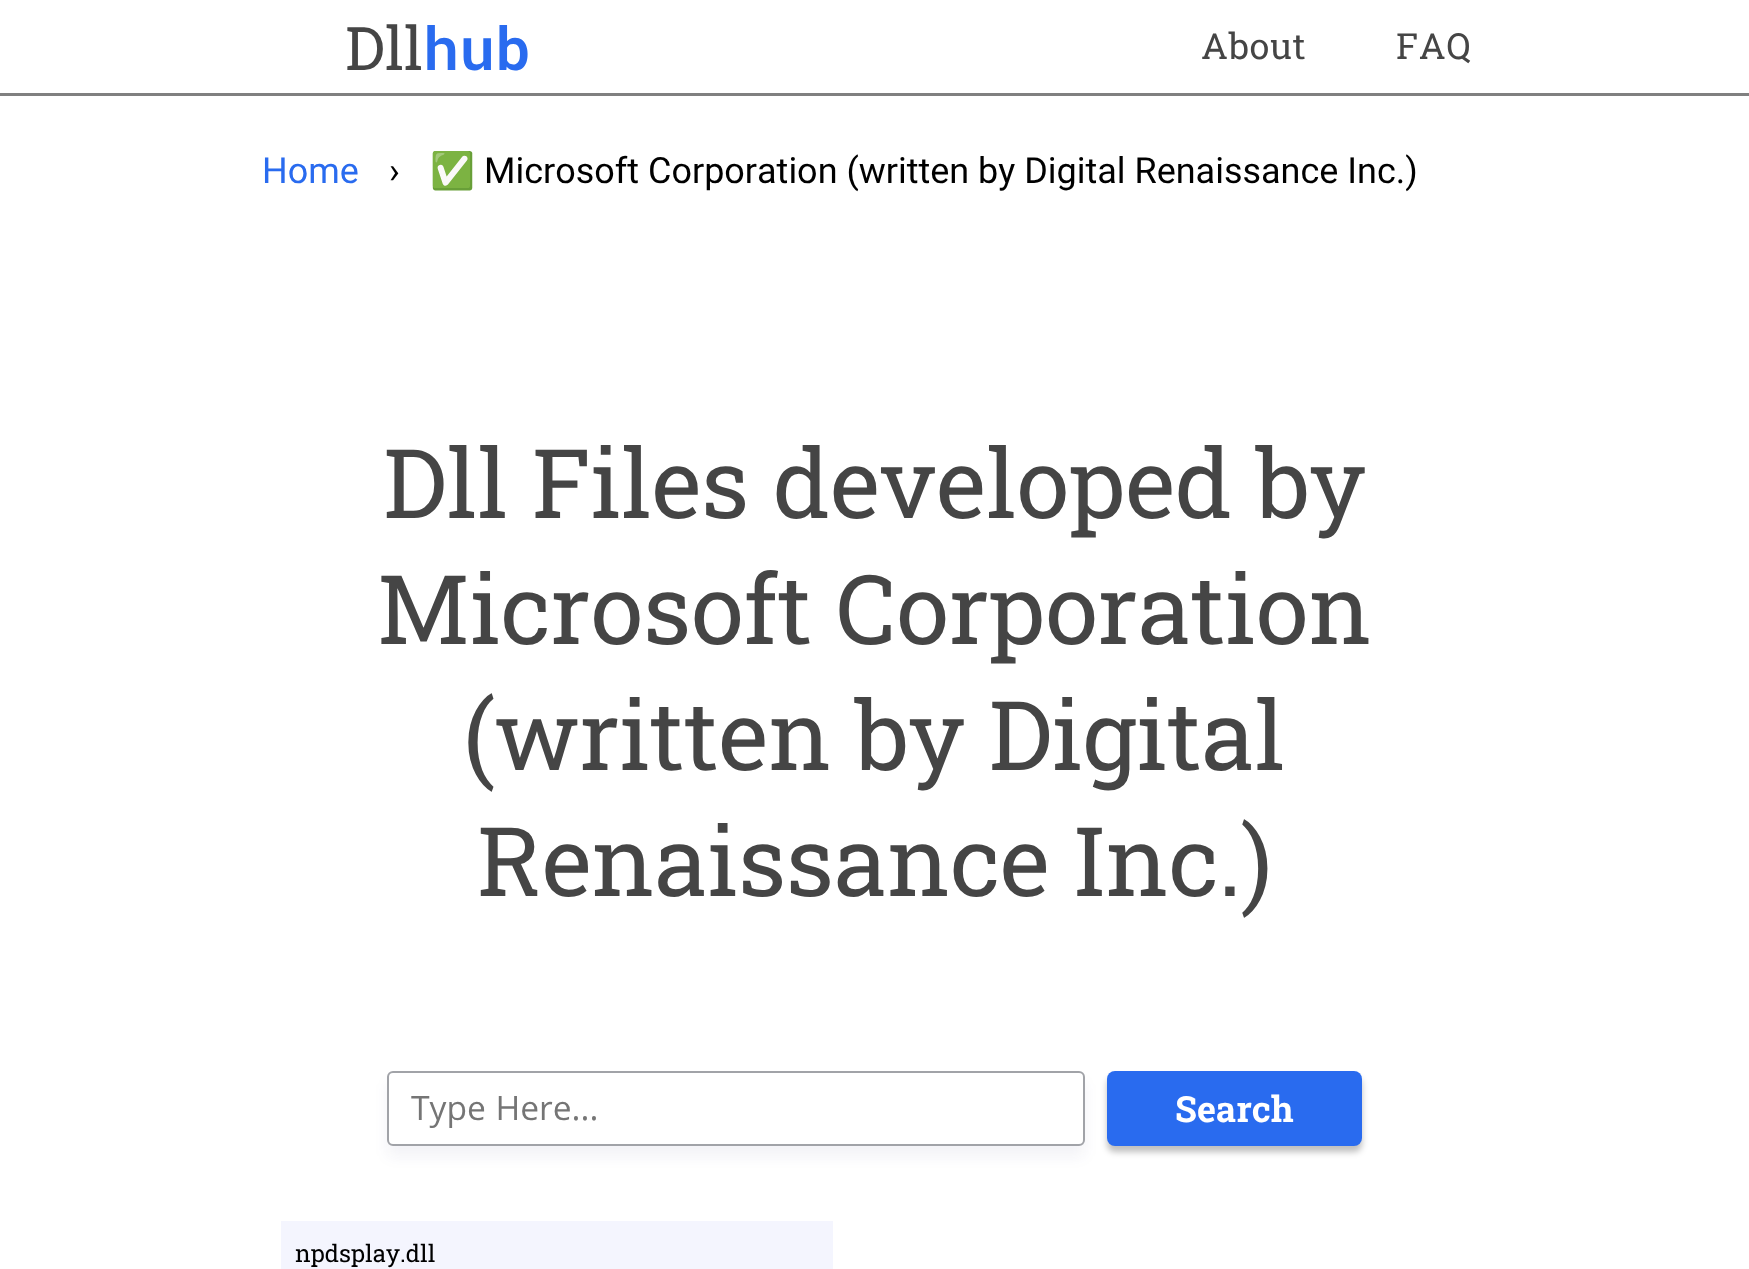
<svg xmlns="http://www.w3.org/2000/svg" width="1749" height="1269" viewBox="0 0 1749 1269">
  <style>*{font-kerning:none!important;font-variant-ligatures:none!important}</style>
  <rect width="100%" height="100%" fill="#fff"/>
  <path d="M0 93h1749v3H0z" fill="#808080"/>
  <rect x="387" y="1082" width="698" height="75" rx="6" fill="#1d0e620d" filter="blur(7px)"/>
  <rect x="388" y="1072" width="696" height="73" rx="5" fill="#fff" stroke="#a1a3a8" stroke-width="2"/>
  <rect x="1107" y="1077" width="255" height="75" rx="8" fill="#00000040" filter="blur(3px)"/>
  <rect x="1107" y="1071" width="255" height="75" rx="8" fill="#296bef"/>
  <path d="M281 1221h552v48H281z" fill="#f4f5fe"/>
  <text x="345" y="70" font-family="Roboto Slab" font-size="60" fill="#454545">Dll</text>
  <text x="423" y="70" font-family="Roboto Mono" font-size="60" font-weight="600" fill="#296bef">hub</text>
  <g font-family="Roboto Slab" font-size="36" letter-spacing="0.75" fill="#454545">
    <text x="1201" y="59">About</text>
    <text x="1396" y="59">FAQ</text>
  </g>
  <text x="262" y="183" font-family="Roboto" font-size="36" fill="#296bef">Home</text>
  <text x="389" y="183" font-family="Roboto" font-size="36" fill="#000">›</text>
  <text x="430" y="183" font-family="Noto Color Emoji" font-size="36" fill="#000">✅</text>
  <text x="484" y="183" font-family="Roboto" font-size="36" fill="#000">Microsoft Corporation (written by Digital Renaissance Inc.)</text>
  <g font-family="Roboto Slab" font-size="96" fill="#454545">
    <text x="383" y="518">Dll Files developed by</text>
    <text x="377" y="644">Microsoft Corporation</text>
    <text x="463" y="770">(written by Digital</text>
    <text x="477" y="896">Renaissance Inc.)</text>
  </g>
  <text x="411" y="1120" font-family="Khula" font-size="36" fill="#757575">Type Here...</text>
  <text x="1175" y="1122" font-family="Roboto Slab" font-size="36" font-weight="bold" fill="#fff">Search</text>
  <text x="295" y="1262" font-family="Roboto Slab" font-size="24" fill="#000">npdsplay.dll</text>
</svg>
